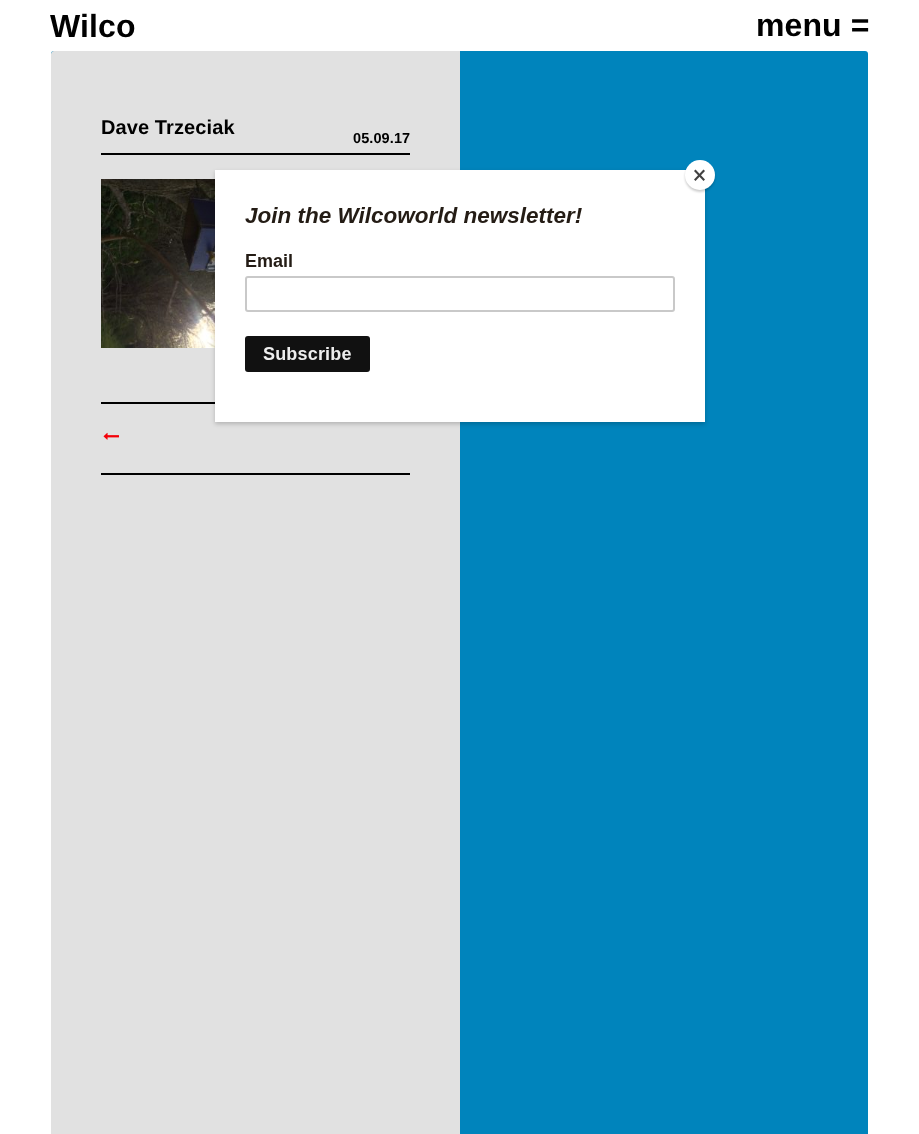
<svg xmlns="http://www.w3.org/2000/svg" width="919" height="1134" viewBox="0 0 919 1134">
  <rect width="100%" height="100%" fill="#fff"/>
  <rect x="51" y="51" width="817" height="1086" rx="3" fill="#0084bc"/>
  <path d="M54 51H460V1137H54C52.5 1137 51 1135.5 51 1134V54C51 52.5 52.5 51 54 51Z" fill="#e1e1e1"/>
  <path d="M101 153h309v2H101z" fill="#000"/>
  <image x="101" y="179" width="114" height="169" href="img/1.png"/>
  <path d="M101 402h114v2H101z" fill="#000"/>
  <path d="M101 473h309v2H101z" fill="#000"/>
  <image x="103" y="432" width="16" height="8" href="img/2.png"/>
  <path d="M215 172h490v252H215z" fill="#00000033" filter="blur(2px)"/>
  <image x="215" y="170" width="490" height="252" href="img/3.png"/>
  <rect x="685" y="162" width="30" height="30" rx="15" fill="#00000033" filter="blur(1px)"/>
  <circle cx="700" cy="175" r="15" fill="#fff"/>
  <path d="M703.5 169.5L705 171L695.5 181L694 179.5Z" fill="#414141"/>
  <path d="M694 171L695.5 169.5L705 179.5L703.5 181Z" fill="#414141"/>
  <g font-family="Liberation Sans" font-size="32" font-weight="bold" letter-spacing="0.1" fill="#000">
    <text x="50" y="37">Wilco</text>
    <text x="756" y="36">menu =</text>
  </g>
  <text x="101" y="134" font-family="Liberation Sans" font-size="20" font-weight="bold" letter-spacing="0.1" fill="#000">Dave Trzeciak</text>
  <text x="353" y="143" font-family="Liberation Sans" font-size="14.5" font-weight="bold" letter-spacing="0.1" fill="#000">05.09.17</text>
</svg>
